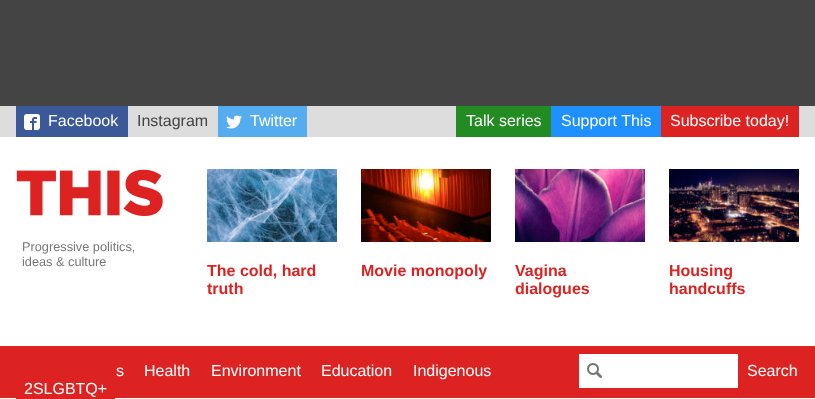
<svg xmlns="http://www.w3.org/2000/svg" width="815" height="399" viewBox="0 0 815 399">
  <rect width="100%" height="100%" fill="#fff"/>
  <path d="M0 0h815v106H0z" fill="#444"/>
  <path d="M0 106h815v31H0z" fill="#ddd"/>
  <path d="M16 106h112v31H16z" fill="#3b5998"/>
  <image x="24" y="114" width="16" height="16" href="img/1.png"/>
  <path d="M218 106h89v31H218z" fill="#55acee"/>
  <image x="226" y="115" width="16" height="14" href="img/2.png"/>
  <path d="M456 106h95v31H456z" fill="#228b22"/>
  <path d="M551 106h110v31H551z" fill="#1e90ff"/>
  <path d="M661 106h138v31H661z" fill="#d22"/>
  <image x="16" y="169" width="147" height="47" href="img/3.png"/>
  <image x="207" y="169" width="130" height="73" href="img/4.png"/>
  <image x="361" y="169" width="130" height="73" href="img/5.png"/>
  <image x="515" y="169" width="130" height="73" href="img/6.png"/>
  <image x="669" y="169" width="130" height="73" href="img/7.png"/>
  <path d="M0 346h815v52H0z" fill="#d22"/>
  <path d="M16 398h99v1H16z" fill="#d22"/>
  <path d="M579 354h159v34H579z" fill="#fff"/>
  <image x="587" y="363" width="15" height="16" href="img/8.png"/>
  <text x="48" y="126" font-family="Liberation Sans" font-size="16" fill="#fff">Facebook</text>
  <text x="137" y="126" font-family="Liberation Sans" font-size="16" fill="#444">Instagram</text>
  <g font-family="Liberation Sans" font-size="16" fill="#fff">
    <text x="250" y="126">Twitter</text>
    <text x="466" y="126">Talk series</text>
    <text x="561" y="126">Support This</text>
    <text x="670" y="126">Subscribe today!</text>
  </g>
  <g font-family="Liberation Sans" font-size="12.75" fill="#777">
    <text x="22" y="251">Progressive politics,</text>
    <text x="22" y="266">ideas &amp; culture</text>
  </g>
  <g font-family="Liberation Sans" font-size="16" font-weight="bold" fill="#d22">
    <text x="207" y="276">The cold, hard</text>
    <text x="207" y="294">truth</text>
    <text x="361" y="276">Movie monopoly</text>
    <text x="515" y="276">Vagina</text>
    <text x="515" y="294">dialogues</text>
    <text x="669" y="276">Housing</text>
    <text x="669" y="294">handcuffs</text>
  </g>
  <g font-family="Liberation Sans" font-size="16" fill="#fff">
    <text x="116" y="376">s</text>
    <text x="144" y="376">Health</text>
    <text x="211" y="376">Environment</text>
    <text x="321" y="376">Education</text>
    <text x="413" y="376">Indigenous</text>
    <text x="24" y="394">2SLGBTQ+</text>
    <text x="747" y="376">Search</text>
  </g>
</svg>
